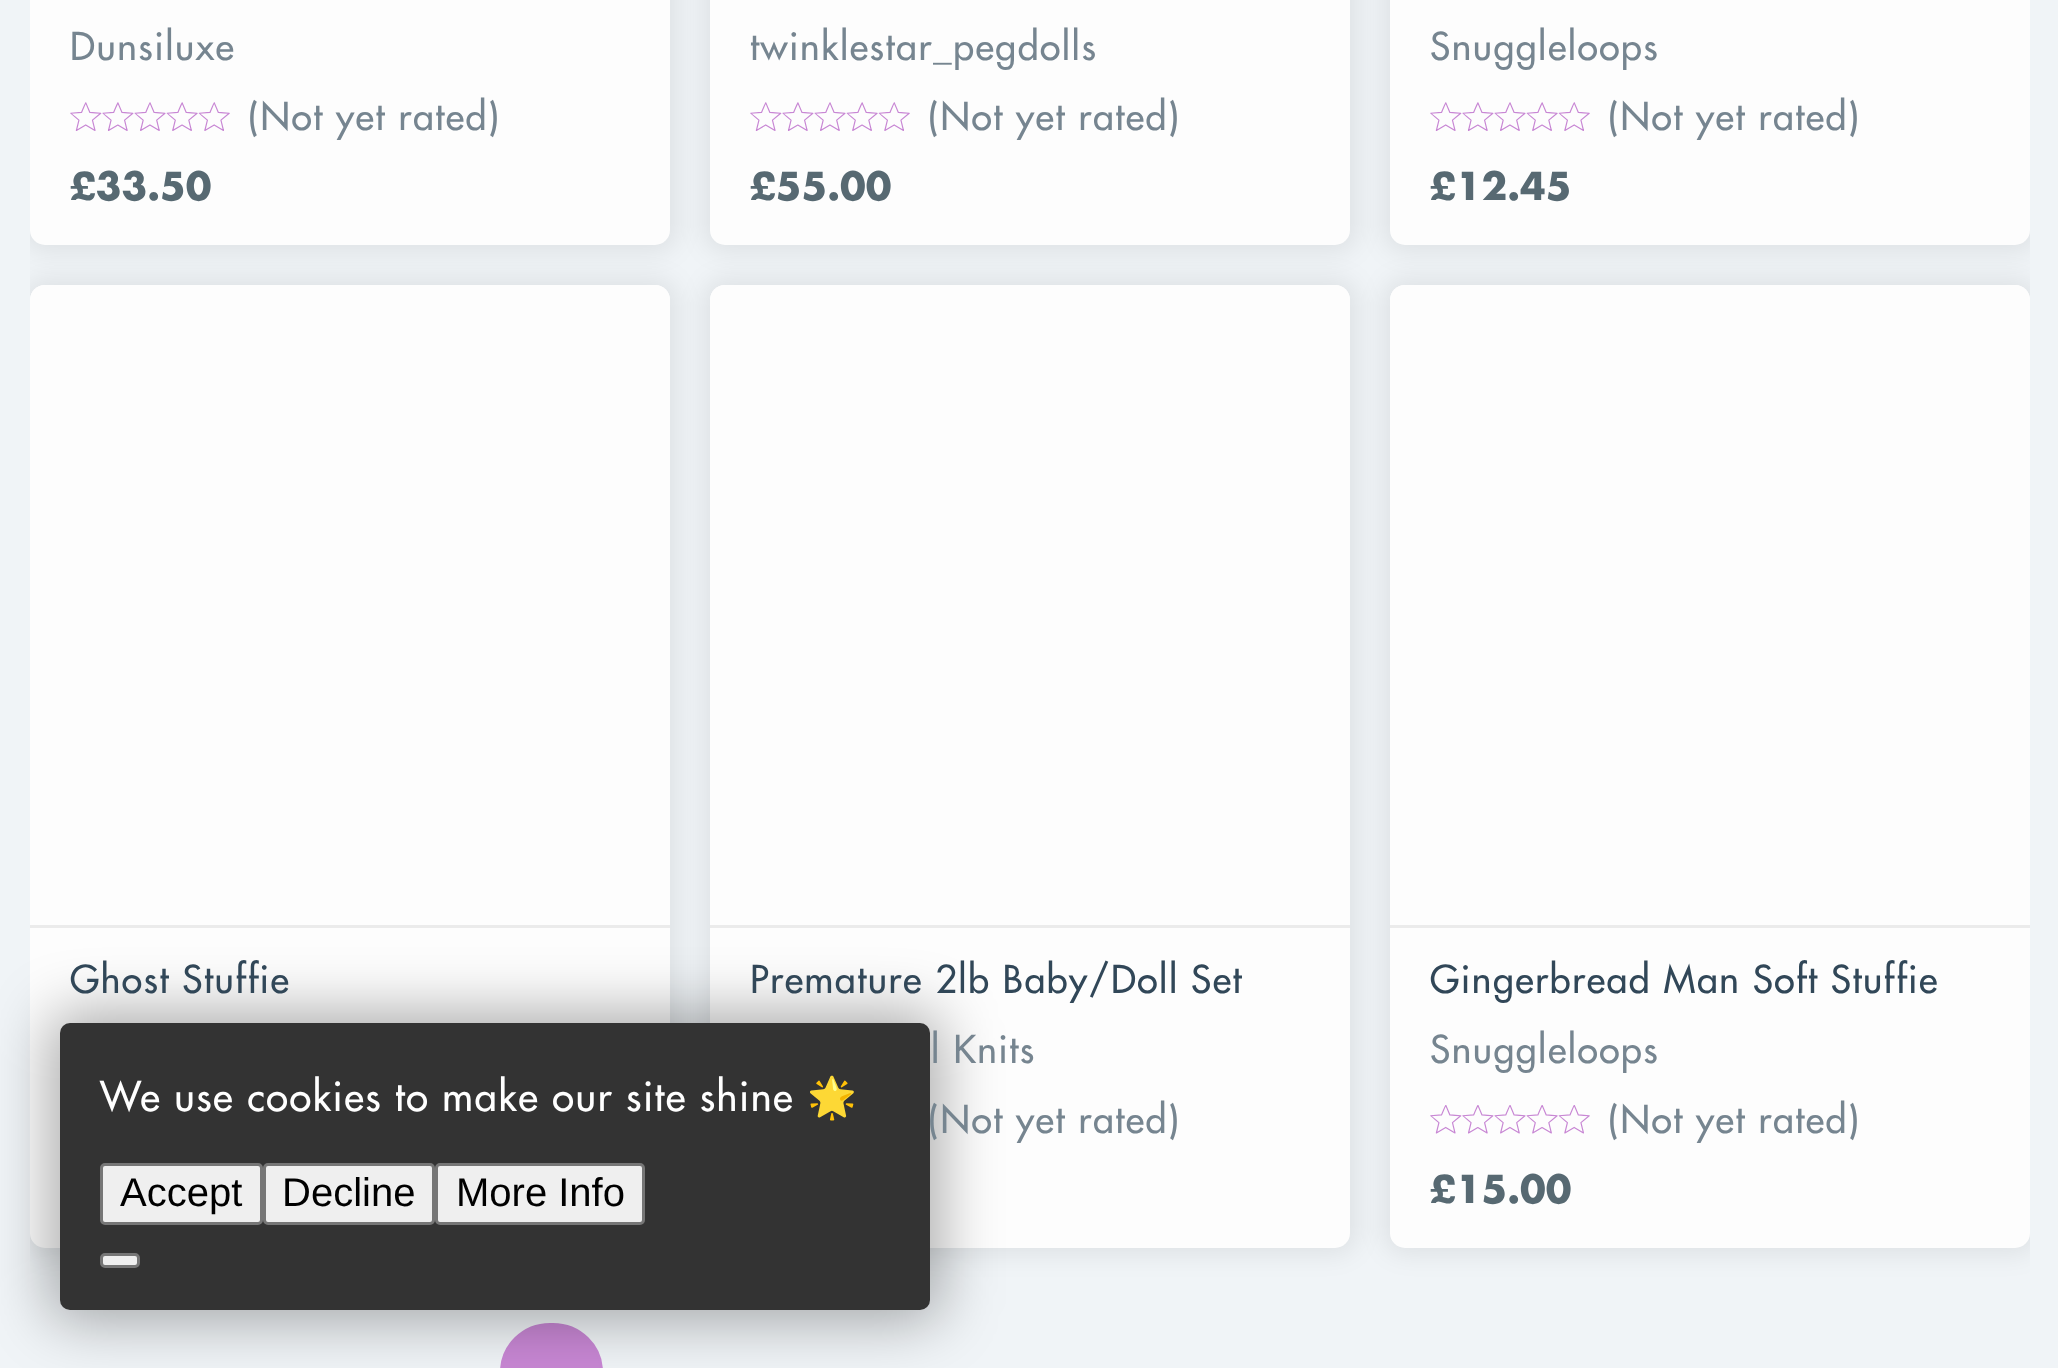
<svg xmlns="http://www.w3.org/2000/svg" width="2058" height="1368" viewBox="0 0 2058 1368">
  <defs>
    <clipPath id="clip1"><path d="M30 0h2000v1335H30z"/></clipPath>
  </defs>
  <rect width="100%" height="100%" fill="#f0f4f7"/>
  <g clip-path="url(#clip1)">
    <rect x="23" y="-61" width="655" height="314" rx="23" fill="#00000012" filter="blur(12.5px)"/>
  </g>
  <rect x="30" y="-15" width="640" height="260" rx="15" fill="#fdfdfd"/>
  <image x="70" y="102" width="160" height="29" href="img/1.png"/>
  <rect x="703" y="-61" width="655" height="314" rx="23" fill="#00000012" filter="blur(12.5px)"/>
  <rect x="710" y="-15" width="640" height="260" rx="15" fill="#fdfdfd"/>
  <image x="750" y="102" width="160" height="29" href="img/2.png"/>
  <g clip-path="url(#clip1)">
    <rect x="1383" y="-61" width="655" height="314" rx="23" fill="#00000012" filter="blur(12.5px)"/>
  </g>
  <rect x="1390" y="-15" width="640" height="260" rx="15" fill="#fdfdfd"/>
  <image x="1430" y="102" width="160" height="29" href="img/3.png"/>
  <g clip-path="url(#clip1)">
    <rect x="23" y="278" width="655" height="977" rx="23" fill="#00000012" filter="blur(12.5px)"/>
  </g>
  <rect x="30" y="285" width="640" height="963" rx="15" fill="#fdfdfd"/>
  <path d="M30 925h640v3H30z" fill="#ebebeb"/>
  <path d="M45 285H655C663.5 285 670 291.5 670 300V925H30V300C30 291.5 36.5 285 45 285Z" fill="#fdfdfd"/>
  <rect x="703" y="278" width="655" height="977" rx="23" fill="#00000012" filter="blur(12.5px)"/>
  <rect x="710" y="285" width="640" height="963" rx="15" fill="#fdfdfd"/>
  <path d="M710 925h640v3H710z" fill="#ebebeb"/>
  <path d="M725 285H1335C1343.5 285 1350 291.5 1350 300V925H710V300C710 291.5 716.5 285 725 285Z" fill="#fdfdfd"/>
  <g clip-path="url(#clip1)">
    <rect x="1383" y="278" width="655" height="977" rx="23" fill="#00000012" filter="blur(12.5px)"/>
  </g>
  <rect x="1390" y="285" width="640" height="963" rx="15" fill="#fdfdfd"/>
  <path d="M1390 925h640v3H1390z" fill="#ebebeb"/>
  <path d="M1405 285H2015C2023.5 285 2030 291.5 2030 300V925H1390V300C1390 291.5 1396.5 285 1405 285Z" fill="#fdfdfd"/>
  <image x="1430" y="1105" width="160" height="29" href="img/4.png"/>
  <rect x="501.5" y="1324.5" width="100" height="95" rx="48.5" fill="#c887d4" stroke="#c887d4" stroke-width="3"/>
  <rect x="50" y="1013" width="890" height="307" rx="20" fill="#00000054" filter="blur(30px)"/>
  <g font-family="Futura" font-size="37.5" font-weight="500" letter-spacing="1.5" fill="#768590">
    <text x="70" y="60">Dunsiluxe</text>
    <text x="248" y="130">(Not yet rated)</text>
  </g>
  <text x="70" y="200" font-family="Futura" font-size="37.5" font-weight="bold" fill="#576972">£33.50</text>
  <g font-family="Futura" font-size="37.5" font-weight="500" letter-spacing="1.5" fill="#768590">
    <text x="750" y="60">twinklestar_pegdolls</text>
    <text x="928" y="130">(Not yet rated)</text>
  </g>
  <text x="750" y="200" font-family="Futura" font-size="37.5" font-weight="bold" fill="#576972">£55.00</text>
  <g font-family="Futura" font-size="37.5" font-weight="500" letter-spacing="1.5" fill="#768590">
    <text x="1430" y="60">Snuggleloops</text>
    <text x="1608" y="130">(Not yet rated)</text>
  </g>
  <text x="1430" y="200" font-family="Futura" font-size="37.5" font-weight="bold" fill="#576972">£12.45</text>
  <g font-family="Futura" font-size="37.5" font-weight="500" letter-spacing="1.5" fill="#314758">
    <text x="70" y="993">Ghost Stuffie</text>
    <text x="750" y="993">Premature 2lb Baby/Doll Set</text>
  </g>
  <g font-family="Futura" font-size="37.5" font-weight="500" letter-spacing="1.5" fill="#768590">
    <text x="931" y="1063">l Knits</text>
    <text x="928" y="1133">(Not yet rated)</text>
  </g>
  <text x="1430" y="993" font-family="Futura" font-size="37.5" font-weight="500" letter-spacing="1.5" fill="#314758">Gingerbread Man Soft Stuffie</text>
  <g font-family="Futura" font-size="37.5" font-weight="500" letter-spacing="1.5" fill="#768590">
    <text x="1430" y="1063">Snuggleloops</text>
    <text x="1608" y="1133">(Not yet rated)</text>
  </g>
  <text x="1430" y="1203" font-family="Futura" font-size="37.5" font-weight="bold" fill="#576972">£15.00</text>
  <rect x="60" y="1023" width="870" height="287" rx="10" fill="#333"/>
  <text x="100" y="1111" font-family="Futura" font-size="40" font-weight="500" letter-spacing="1.5" fill="#fff">We use cookies to make our site shine</text>
  <text x="807" y="1111" font-family="Noto Color Emoji" font-size="40" letter-spacing="1.5" fill="#fff">🌟</text>
  <rect x="101.5" y="1164.5" width="160" height="59" rx="3.5" fill="#efefef" stroke="#767676" stroke-width="3"/>
  <text x="120" y="1206" font-family="Liberation Sans" font-size="40" fill="#000">Accept</text>
  <rect x="264.5" y="1164.5" width="169" height="59" rx="3.5" fill="#efefef" stroke="#767676" stroke-width="3"/>
  <text x="282" y="1206" font-family="Liberation Sans" font-size="40" fill="#000">Decline</text>
  <rect x="436.5" y="1164.5" width="207" height="59" rx="3.5" fill="#efefef" stroke="#767676" stroke-width="3"/>
  <text x="456" y="1206" font-family="Liberation Sans" font-size="40" fill="#000">More Info</text>
  <rect x="101.5" y="1254.5" width="37" height="12" rx="3.5" fill="#efefef" stroke="#767676" stroke-width="3"/>
</svg>
